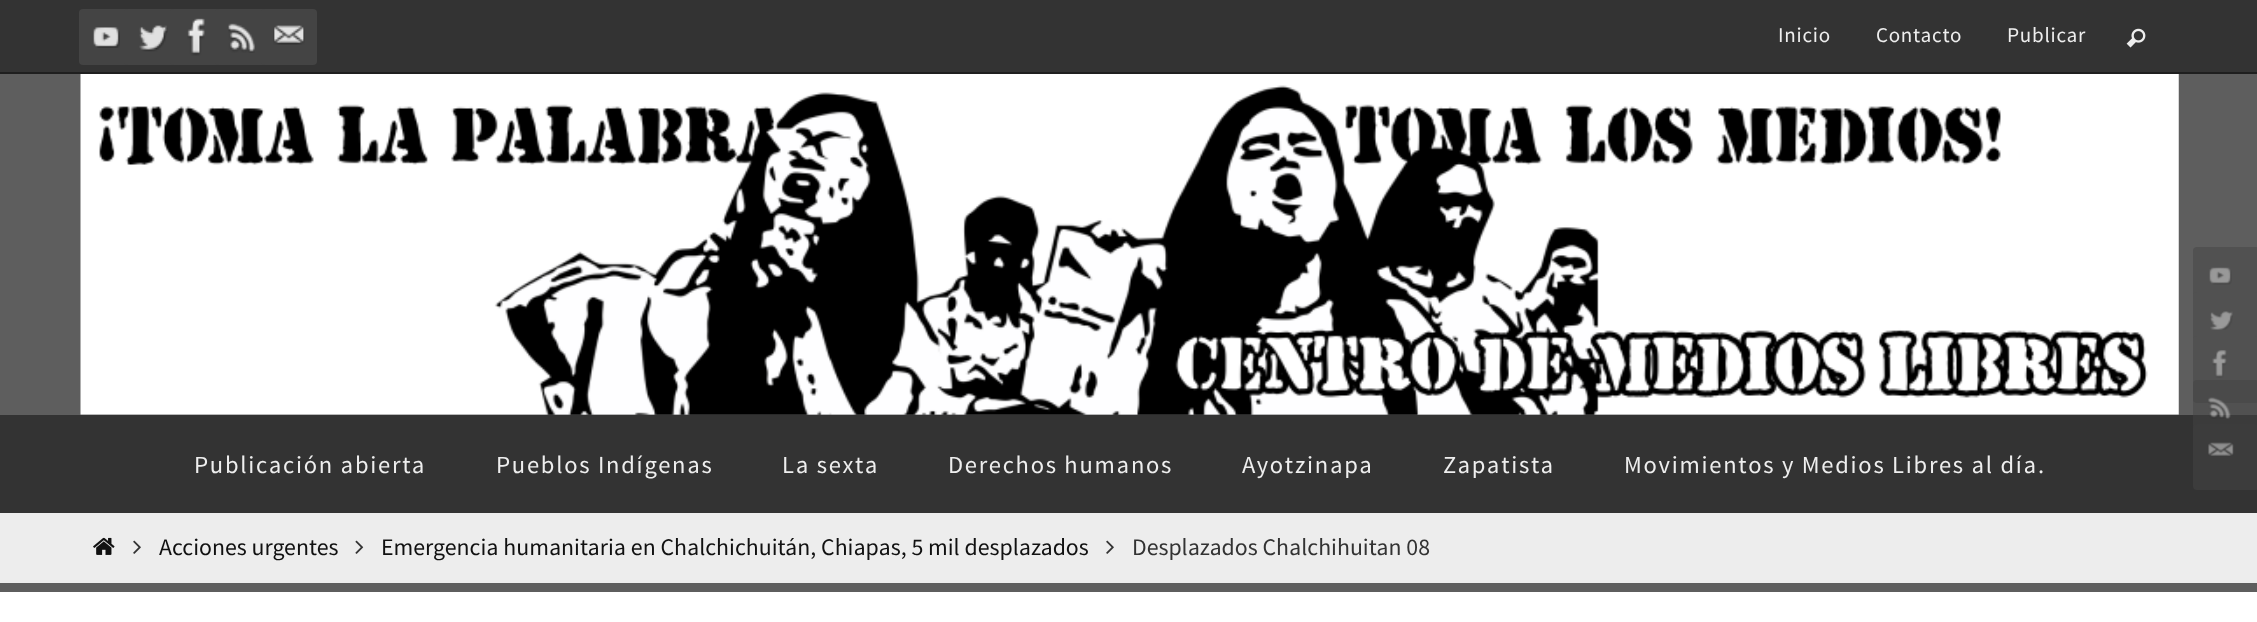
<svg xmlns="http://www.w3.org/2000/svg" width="2257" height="622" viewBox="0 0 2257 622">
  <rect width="100%" height="100%" fill="#5e5e5e"/>
  <path d="M0 0h2257v72H0z" fill="#333"/>
  <path d="M0 72h2257v2H0z" fill="#1f1f1f"/>
  <rect x="79" y="9" width="56" height="56" rx="4" fill="#444"/>
  <image x="93" y="27" width="27" height="21" href="img/1.png"/>
  <rect x="124" y="9" width="56" height="56" rx="4" fill="#444"/>
  <image x="139" y="25" width="29" height="27" href="img/2.png"/>
  <rect x="170" y="9" width="56" height="56" rx="4" fill="#444"/>
  <image x="187" y="18" width="18" height="38" href="img/3.png"/>
  <rect x="215" y="9" width="56" height="56" rx="4" fill="#444"/>
  <image x="228" y="23" width="27" height="30" href="img/4.png"/>
  <rect x="261" y="9" width="56" height="56" rx="4" fill="#444"/>
  <image x="273" y="25" width="32" height="20" href="img/5.png"/>
  <image x="2126" y="28" width="20" height="20" href="img/6.png"/>
  <image x="80" y="74" width="2099" height="341" href="img/7.png"/>
  <path d="M0 415h2257v98H0z" fill="#333"/>
  <rect x="2193" y="247" width="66" height="66" rx="4" fill="#515151"/>
  <image x="2209" y="267" width="23" height="18" href="img/8.png"/>
  <rect x="2193" y="292" width="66" height="67" rx="4" fill="#515151"/>
  <image x="2210" y="311" width="23" height="19" href="img/9.png"/>
  <rect x="2193" y="336" width="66" height="67" rx="4" fill="#515151"/>
  <image x="2212" y="350" width="15" height="28" href="img/10.png"/>
  <rect x="2193" y="380" width="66" height="66" rx="4" fill="#44444480"/>
  <image x="2208" y="397" width="23" height="22" href="img/11.png"/>
  <rect x="2193" y="424" width="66" height="66" rx="4" fill="#3c3c3c"/>
  <image x="2208" y="442" width="26" height="14" href="img/12.png"/>
  <path d="M0 513h2257v70H0z" fill="#ededed"/>
  <image x="93" y="537" width="22" height="18" href="img/13.png"/>
  <image x="133" y="540" width="8" height="14" href="img/14.png"/>
  <image x="355" y="540" width="9" height="14" href="img/15.png"/>
  <image x="1106" y="540" width="8" height="14" href="img/14.png"/>
  <path d="M0 592h2257v30H0z" fill="#fff"/>
  <g font-family="Source Sans Pro" font-size="21" letter-spacing="0.75" fill="#eee">
    <text x="1778" y="42">Inicio</text>
    <text x="1876" y="42">Contacto</text>
    <text x="2007" y="42">Publicar</text>
  </g>
  <g font-family="Source Sans Pro" font-size="24.5" letter-spacing="1.75" fill="#eee">
    <text x="194" y="473">Publicación abierta</text>
    <text x="496" y="473">Pueblos Indígenas</text>
    <text x="782" y="473">La sexta</text>
    <text x="948" y="473">Derechos humanos</text>
    <text x="1242" y="473">Ayotzinapa</text>
    <text x="1443" y="473">Zapatista</text>
    <text x="1624" y="473">Movimientos y Medios Libres al día.</text>
  </g>
  <g font-family="Source Sans Pro" font-size="23.8" fill="#111">
    <text x="159" y="555">Acciones urgentes</text>
    <text x="381" y="555">Emergencia humanitaria en Chalchichuitán, Chiapas, 5 mil desplazados</text>
  </g>
  <text x="1132" y="555" font-family="Source Sans Pro" font-size="23.8" fill="#333">Desplazados Chalchihuitan 08</text>
</svg>
